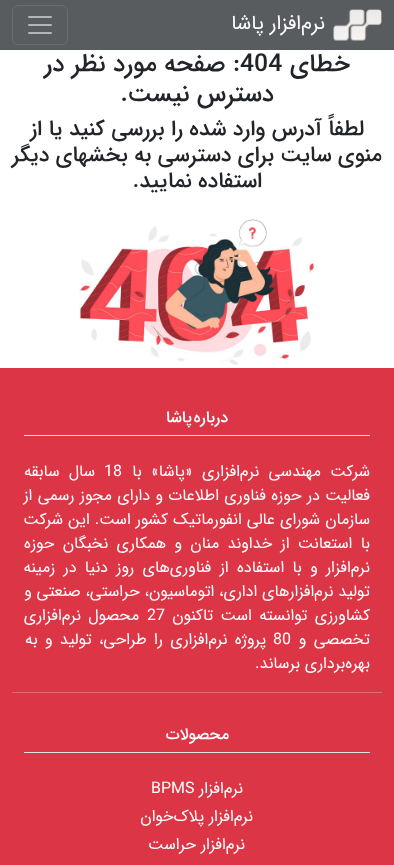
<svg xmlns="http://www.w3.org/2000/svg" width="394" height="865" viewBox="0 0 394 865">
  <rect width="100%" height="100%" fill="#fff"/>
  <path d="M0 0h394v50H0z" fill="#595c5f"/>
  <image x="333" y="9" width="49" height="32" href="img/1.png"/>
  <rect x="12.5" y="5.5" width="55" height="39" rx="5.5" fill="none" stroke="#6a6c6f"/>
  <image x="28" y="16" width="24" height="18" href="img/2.png"/>
  <image x="79" y="219" width="237" height="146" href="img/3.png"/>
  <path d="M0 368h394v497H0z" fill="#dc3545"/>
  <path d="M24 435h346v1H24z" fill="#dee2e6"/>
  <path d="M12 692h370v1H12z" fill="#e56874"/>
  <path d="M24 752h346v1H24z" fill="#dee2e6"/>
  <text x="325" y="29" font-family="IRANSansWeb" font-size="20" direction="rtl" fill="#fff">نرم‌افزار پاشا</text>
  <text x="350" y="71" font-family="IRANSansWeb" font-size="24.75" font-weight="500" direction="rtl" fill="#212529">خطای</text>
  <text x="240" y="71" font-family="IRANSansWeb" font-size="24.75" font-weight="500" fill="#212529">404</text>
  <g font-family="IRANSansWeb" font-size="24.75" font-weight="500" direction="rtl" fill="#212529">
    <text x="240" y="71">: صفحه مورد نظر در</text>
    <text x="274" y="101">دسترس نیست.</text>
  </g>
  <g font-family="IRANSansWeb" font-size="21.6" font-weight="500" direction="rtl" fill="#212529">
    <text x="364" y="135">لطفاً آدرس وارد شده را بررسی کنید یا از</text>
    <text x="382" y="161">منوی سایت برای دسترسی به بخشهای دیگر</text>
    <text x="262" y="187">استفاده نمایید.</text>
  </g>
  <text x="228" y="422" font-family="IRANSansWeb" font-size="16" font-weight="500" direction="rtl" fill="#fff">درباره پاشا</text>
  <text x="370" y="476" word-spacing="4.5" font-family="IRANSansWeb" font-size="16" direction="rtl" fill="#fff">شرکت مهندسی نرم‌افزاری «پاشا» با</text>
  <text x="104" y="476" font-family="IRANSansWeb" font-size="16" fill="#fff">18</text>
  <g font-family="IRANSansWeb" font-size="16" direction="rtl" fill="#fff">
    <text x="95" y="476" word-spacing="4.5">سال سابقه</text>
    <text x="370" y="500" word-spacing="0.5">فعالیت در حوزه فناوری اطلاعات و دارای مجوز رسمی از</text>
    <text x="370" y="524" word-spacing="0.25">سازمان شورای عالی انفورماتیک کشور است. این شرکت</text>
    <text x="370" y="548" word-spacing="3.5">با استعانت از خداوند منان و همکاری نخبگان حوزه</text>
    <text x="370" y="572" word-spacing="3.5">نرم‌افزار و با استفاده از فناوری‌های روز دنیا در زمینه</text>
    <text x="370" y="596">تولید نرم‌افزارهای اداری، اتوماسیون، حراستی، صنعتی و</text>
    <text x="370" y="620" word-spacing="2.5">کشاورزی توانسته است تاکنون</text>
  </g>
  <text x="147" y="620" font-family="IRANSansWeb" font-size="16" fill="#fff">27</text>
  <g font-family="IRANSansWeb" font-size="16" direction="rtl" fill="#fff">
    <text x="139" y="620" word-spacing="2.5">محصول نرم‌افزاری</text>
    <text x="370" y="644" word-spacing="2.5">تخصصی و</text>
  </g>
  <text x="273" y="644" font-family="IRANSansWeb" font-size="16" fill="#fff">80</text>
  <g font-family="IRANSansWeb" font-size="16" direction="rtl" fill="#fff">
    <text x="266" y="644" word-spacing="2.5">پروژه نرم‌افزاری را طراحی، تولید و به</text>
    <text x="370" y="668">بهره‌برداری برساند.</text>
  </g>
  <text x="229" y="739" font-family="IRANSansWeb" font-size="16" font-weight="500" direction="rtl" fill="#fff">محصولات</text>
  <text x="243" y="793" font-family="IRANSansWeb" font-size="16" direction="rtl" fill="#fff">نرم‌افزار</text>
  <text x="151" y="793" font-family="IRANSansWeb" font-size="16" fill="#fff">BPMS</text>
  <g font-family="IRANSansWeb" font-size="16" direction="rtl" fill="#fff">
    <text x="253" y="821">نرم‌افزار پلاک‌خوان</text>
    <text x="245" y="849">نرم‌افزار حراست</text>
  </g>
</svg>
